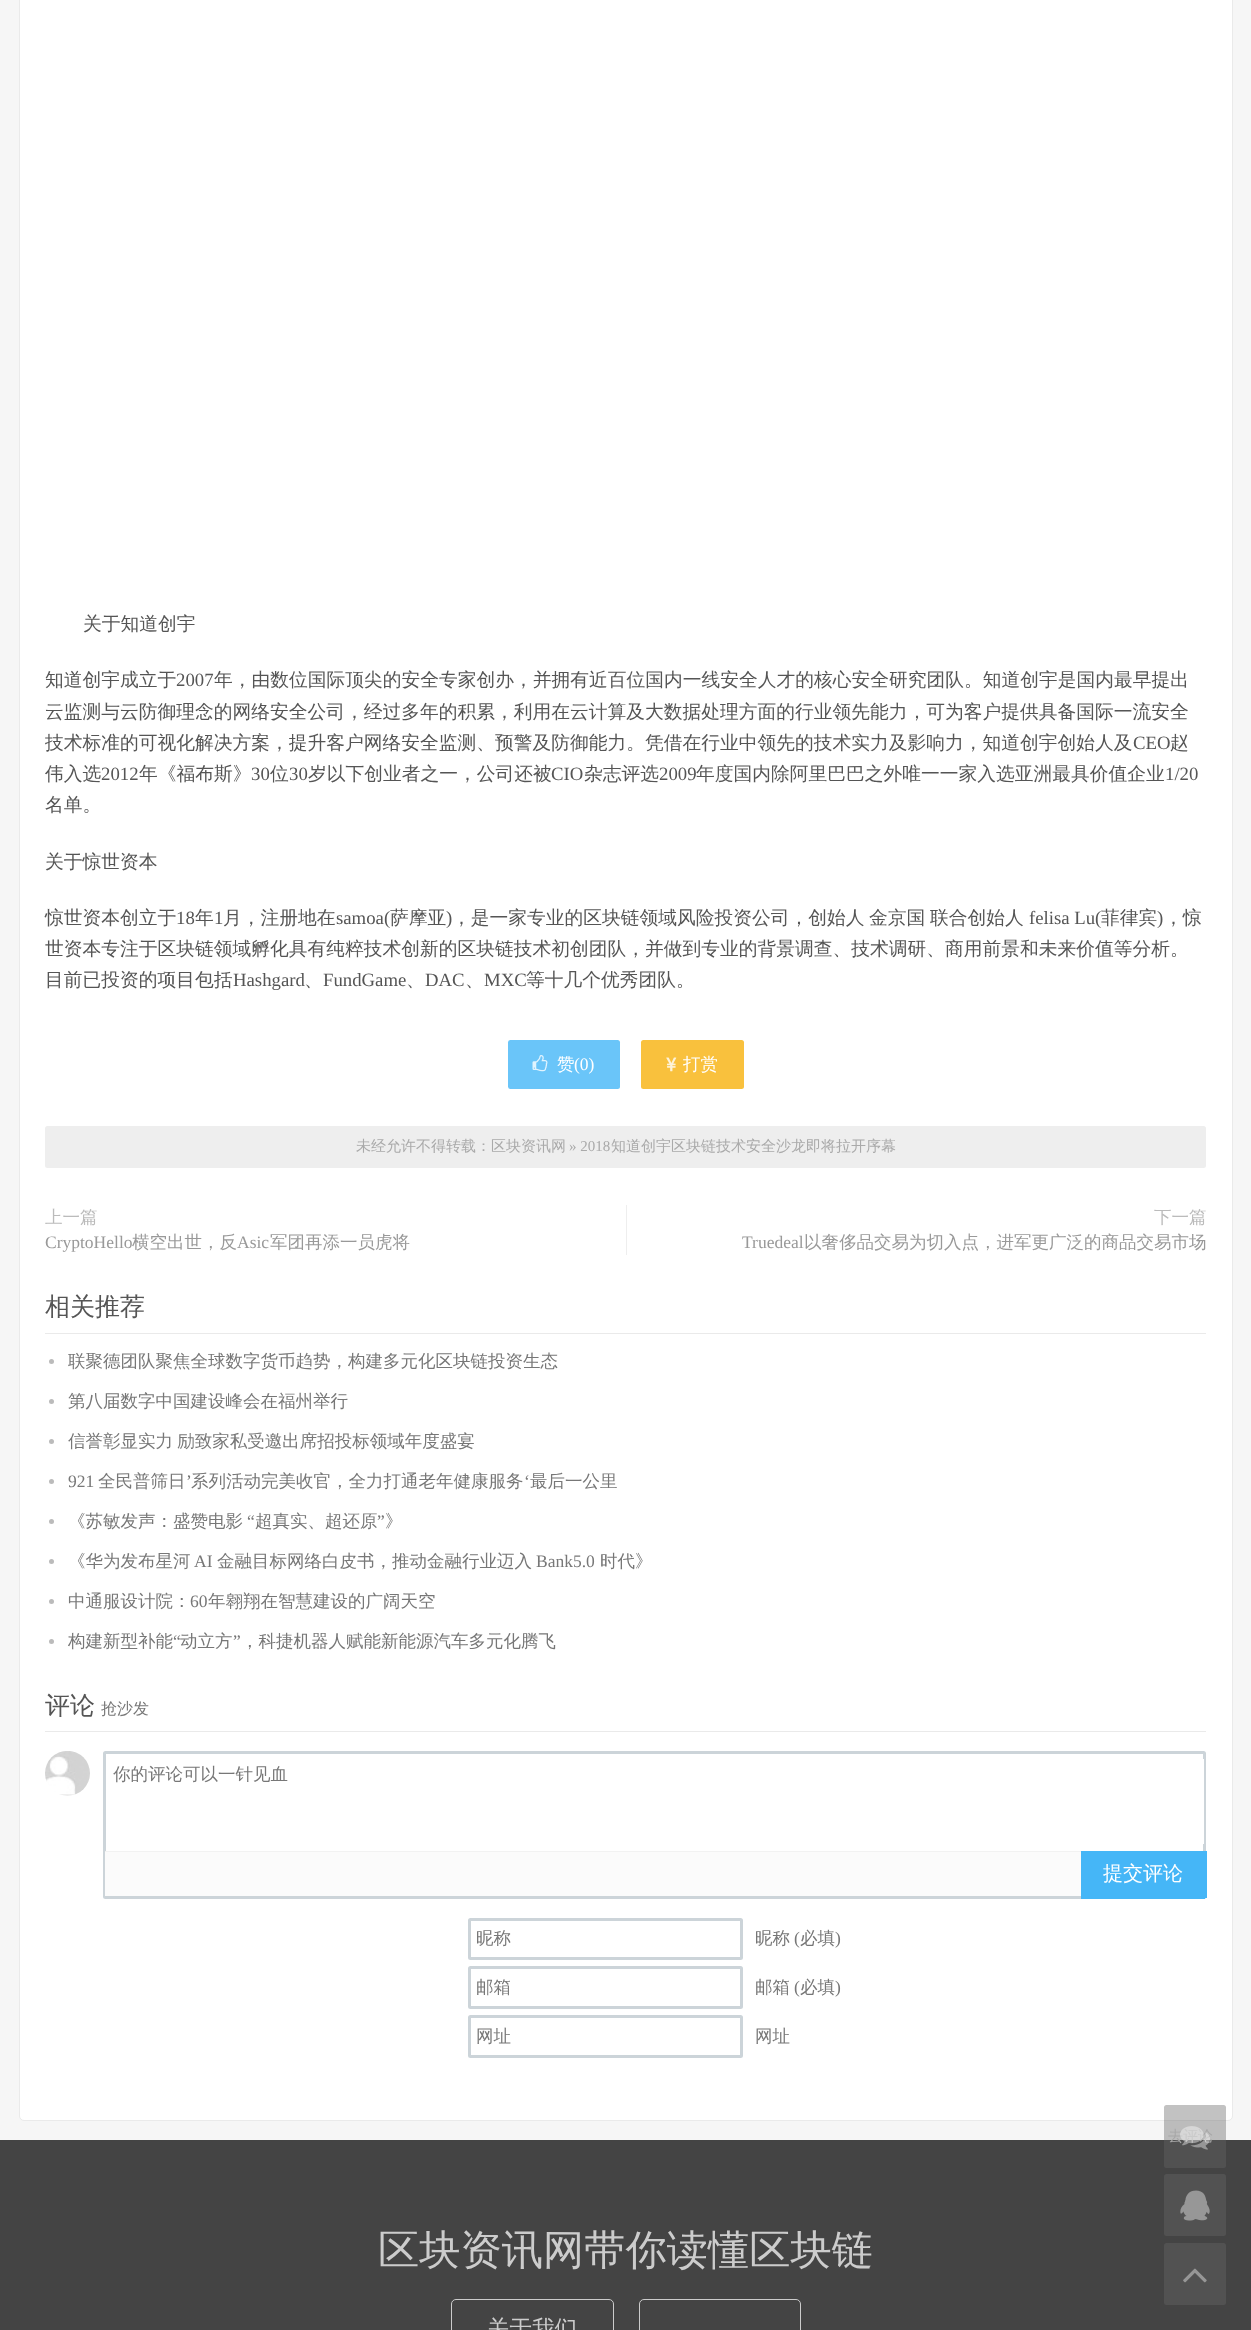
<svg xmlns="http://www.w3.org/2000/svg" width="1251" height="2330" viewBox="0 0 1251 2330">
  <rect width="100%" height="100%" fill="#f6f6f6"/>
  <rect x="19.5" y="-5.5" width="1213" height="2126" rx="4.5" fill="#fff" stroke="#eaeaea"/>
  <rect x="508" y="1040" width="112" height="49" rx="2.5" fill="#6ac5f9"/>
  <image x="532" y="1055" width="16" height="17" href="img/1.png"/>
  <rect x="641" y="1040" width="103" height="49" rx="2.5" fill="#f9c13d"/>
  <image x="666" y="1057" width="11" height="15" href="img/2.png"/>
  <rect x="45" y="1126" width="1161" height="42" rx="2.5" fill="#eee"/>
  <path d="M626 1205h1v50H626z" fill="#eee"/>
  <path d="M45 1333h1161v1H45z" fill="#eaeaea"/>
  <circle cx="51.5" cy="1361.5" r="2.5" fill="#bbb"/>
  <circle cx="51.5" cy="1401.5" r="2.5" fill="#bbb"/>
  <circle cx="51.5" cy="1441.5" r="2.5" fill="#bbb"/>
  <circle cx="51.5" cy="1481.5" r="2.5" fill="#bbb"/>
  <circle cx="51.5" cy="1521.5" r="2.5" fill="#bbb"/>
  <circle cx="51.5" cy="1561.5" r="2.5" fill="#bbb"/>
  <circle cx="51.5" cy="1601.5" r="2.5" fill="#bbb"/>
  <circle cx="51.5" cy="1641.5" r="2.5" fill="#bbb"/>
  <path d="M45 1731h1161v1H45z" fill="#eaeaea"/>
  <image x="45" y="1751" width="45" height="45" href="img/3.png"/>
  <rect x="104.5" y="1752.5" width="1100" height="145" rx="1" fill="none" stroke="#ccd4d9" stroke-width="3"/>
  <path d="M1203 1759h1v85H1203z" fill="#fff"/>
  <path d="M105 1852h976v44H105z" fill="#fbfbfb"/>
  <path d="M105 1851h976v1H105z" fill="#f2f2f2"/>
  <path d="M1081 1851H1206V1896.5C1206 1898 1205 1899 1203.5 1899H1081Z" fill="#45b6f7"/>
  <path d="M1205 1851h2v47H1205z" fill="#45b6f7"/>
  <path d="M1203 1898h2v1H1203z" fill="#45b6f7"/>
  <rect x="469.5" y="1919.5" width="272" height="39" rx="1" fill="none" stroke="#ccd4d9" stroke-width="3"/>
  <rect x="469.5" y="1967.5" width="272" height="40" rx="1" fill="none" stroke="#ccd4d9" stroke-width="3"/>
  <rect x="469.5" y="2016.5" width="272" height="40" rx="1" fill="none" stroke="#ccd4d9" stroke-width="3"/>
  <path d="M0 2140h1251v190H0z" fill="#444"/>
  <rect x="1164" y="2174" width="62" height="62" rx="2.5" fill="#525252"/>
  <image x="1180" y="2190" width="30" height="31" href="img/5.png"/>
  <rect x="1164" y="2243" width="62" height="62" rx="2.5" fill="#525252"/>
  <image x="1183" y="2268" width="24" height="15" href="img/6.png"/>
  <rect x="451.5" y="2299.5" width="162" height="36" rx="4.5" fill="none" stroke="#ccc"/>
  <rect x="639.5" y="2299.5" width="161" height="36" rx="4.5" fill="none" stroke="#ccc"/>
  <g font-family="WenQuanYi Zen Hei" font-size="18.75" font-weight="500" fill="#555">
    <text x="83" y="630">关于知道创宇</text>
    <text x="45" y="686">知道创宇成立于</text>
  </g>
  <text x="176" y="686" font-family="Liberation Serif" font-size="18.75" fill="#555">2007</text>
  <g font-family="WenQuanYi Zen Hei" font-size="18.75" font-weight="500" fill="#555">
    <text x="214" y="686">年，由数位国际顶尖的安全专家创办，并拥有近百位国内一线安全人才的核心安全研究团队。知道创宇是国内最早提出</text>
    <text x="45" y="718">云监测与云防御理念的网络安全公司，经过多年的积累，利用在云计算及大数据处理方面的行业领先能力，可为客户提供具备国际一流安全</text>
    <text x="45" y="749">技术标准的可视化解决方案，提升客户网络安全监测、预警及防御能力。凭借在行业中领先的技术实力及影响力，知道创宇创始人及</text>
  </g>
  <text x="1133" y="749" font-family="Liberation Serif" font-size="18.75" fill="#555">CEO</text>
  <g font-family="WenQuanYi Zen Hei" font-size="18.75" font-weight="500" fill="#555">
    <text x="1170" y="749">赵</text>
    <text x="45" y="780">伟入选</text>
  </g>
  <text x="101" y="780" font-family="Liberation Serif" font-size="18.75" fill="#555">2012</text>
  <text x="139" y="780" font-family="WenQuanYi Zen Hei" font-size="18.75" font-weight="500" fill="#555">年《福布斯》</text>
  <text x="251" y="780" font-family="Liberation Serif" font-size="18.75" fill="#555">30</text>
  <text x="270" y="780" font-family="WenQuanYi Zen Hei" font-size="18.75" font-weight="500" fill="#555">位</text>
  <text x="289" y="780" font-family="Liberation Serif" font-size="18.75" fill="#555">30</text>
  <text x="308" y="780" font-family="WenQuanYi Zen Hei" font-size="18.75" font-weight="500" fill="#555">岁以下创业者之一，公司还被</text>
  <text x="551" y="780" font-family="Liberation Serif" font-size="18.75" fill="#555">CIO</text>
  <text x="584" y="780" font-family="WenQuanYi Zen Hei" font-size="18.75" font-weight="500" fill="#555">杂志评选</text>
  <text x="659" y="780" font-family="Liberation Serif" font-size="18.75" fill="#555">2009</text>
  <text x="696" y="780" font-family="WenQuanYi Zen Hei" font-size="18.75" font-weight="500" fill="#555">年度国内除阿里巴巴之外唯一一家入选亚洲最具价值企业</text>
  <text x="1165" y="780" font-family="Liberation Serif" font-size="18.75" fill="#555">1/20</text>
  <g font-family="WenQuanYi Zen Hei" font-size="18.75" font-weight="500" fill="#555">
    <text x="45" y="811">名单。</text>
    <text x="45" y="868">关于惊世资本</text>
    <text x="45" y="924">惊世资本创立于</text>
  </g>
  <text x="176" y="924" font-family="Liberation Serif" font-size="18.75" fill="#555">18</text>
  <text x="195" y="924" font-family="WenQuanYi Zen Hei" font-size="18.75" font-weight="500" fill="#555">年</text>
  <text x="214" y="924" font-family="Liberation Serif" font-size="18.75" fill="#555">1</text>
  <text x="223" y="924" font-family="WenQuanYi Zen Hei" font-size="18.75" font-weight="500" fill="#555">月，注册地在</text>
  <text x="336" y="924" font-family="Liberation Serif" font-size="18.75" fill="#555">samoa(</text>
  <text x="390" y="924" font-family="WenQuanYi Zen Hei" font-size="18.75" font-weight="500" fill="#555">萨摩亚</text>
  <text x="446" y="924" font-family="Liberation Serif" font-size="18.75" fill="#555">)</text>
  <g font-family="WenQuanYi Zen Hei" font-size="18.75" font-weight="500" fill="#555">
    <text x="452" y="924">，是一家专业的区块链领域风险投资公司，创始人</text>
    <text x="869" y="924">金京国</text>
    <text x="930" y="924">联合创始人</text>
  </g>
  <text x="1029" y="924" font-family="Liberation Serif" font-size="18.75" fill="#555">felisa Lu(</text>
  <text x="1101" y="924" font-family="WenQuanYi Zen Hei" font-size="18.75" font-weight="500" fill="#555">菲律宾</text>
  <text x="1157" y="924" font-family="Liberation Serif" font-size="18.75" fill="#555">)</text>
  <g font-family="WenQuanYi Zen Hei" font-size="18.75" font-weight="500" fill="#555">
    <text x="1164" y="924">，惊</text>
    <text x="45" y="955">世资本专注于区块链领域孵化具有纯粹技术创新的区块链技术初创团队，并做到专业的背景调查、技术调研、商用前景和未来价值等分析。</text>
    <text x="45" y="986">目前已投资的项目包括</text>
  </g>
  <text x="233" y="986" font-family="Liberation Serif" font-size="18.75" fill="#555">Hashgard</text>
  <text x="304" y="986" font-family="WenQuanYi Zen Hei" font-size="18.75" font-weight="500" fill="#555">、</text>
  <text x="323" y="986" font-family="Liberation Serif" font-size="18.75" fill="#555">FundGame</text>
  <text x="406" y="986" font-family="WenQuanYi Zen Hei" font-size="18.75" font-weight="500" fill="#555">、</text>
  <text x="425" y="986" font-family="Liberation Serif" font-size="18.75" fill="#555">DAC</text>
  <text x="465" y="986" font-family="WenQuanYi Zen Hei" font-size="18.75" font-weight="500" fill="#555">、</text>
  <text x="484" y="986" font-family="Liberation Serif" font-size="18.75" fill="#555">MXC</text>
  <text x="526" y="986" font-family="WenQuanYi Zen Hei" font-size="18.75" font-weight="500" fill="#555">等十几个优秀团队。</text>
  <text x="557" y="1070" font-family="WenQuanYi Zen Hei" font-size="17.5" font-weight="500" fill="#fff">赞</text>
  <text x="574" y="1070" font-family="Liberation Serif" font-size="17.5" fill="#fff">(0)</text>
  <text x="683" y="1070" font-family="WenQuanYi Zen Hei" font-size="17.5" font-weight="500" fill="#fff">打赏</text>
  <text x="356" y="1151" font-family="WenQuanYi Zen Hei" font-size="15" font-weight="500" fill="#aaa">未经允许不得转载：区块资讯网</text>
  <text x="569" y="1151" font-family="Liberation Serif" font-size="15" fill="#aaa">» 2018</text>
  <text x="611" y="1151" font-family="WenQuanYi Zen Hei" font-size="15" font-weight="500" fill="#aaa">知道创宇区块链技术安全沙龙即将拉开序幕</text>
  <text x="45" y="1223" font-family="WenQuanYi Zen Hei" font-size="17.5" font-weight="500" fill="#bbb">上一篇</text>
  <text x="45" y="1248" font-family="Liberation Serif" font-size="17.5" fill="#999">CryptoHello</text>
  <text x="132" y="1248" font-family="WenQuanYi Zen Hei" font-size="17.5" font-weight="500" fill="#999">横空出世，反</text>
  <text x="237" y="1248" font-family="Liberation Serif" font-size="17.5" fill="#999">Asic</text>
  <text x="270" y="1248" font-family="WenQuanYi Zen Hei" font-size="17.5" font-weight="500" fill="#999">军团再添一员虎将</text>
  <text x="1154" y="1223" font-family="WenQuanYi Zen Hei" font-size="17.5" font-weight="500" fill="#bbb">下一篇</text>
  <text x="742" y="1248" font-family="Liberation Serif" font-size="17.5" fill="#999">Truedeal</text>
  <text x="804" y="1248" font-family="WenQuanYi Zen Hei" font-size="17.5" font-weight="500" fill="#999">以奢侈品交易为切入点，进军更广泛的商品交易市场</text>
  <text x="45" y="1315" font-family="WenQuanYi Zen Hei" font-size="25" font-weight="500" fill="#555">相关推荐</text>
  <g font-family="WenQuanYi Zen Hei" font-size="17.5" font-weight="500" fill="#777">
    <text x="68" y="1367">联聚德团队聚焦全球数字货币趋势，构建多元化区块链投资生态</text>
    <text x="68" y="1407">第八届数字中国建设峰会在福州举行</text>
    <text x="68" y="1447" word-spacing="-1">信誉彰显实力 励致家私受邀出席招投标领域年度盛宴</text>
  </g>
  <text x="68" y="1487" font-family="Liberation Serif" font-size="17.5" fill="#777">921</text>
  <text x="98" y="1487" font-family="WenQuanYi Zen Hei" font-size="17.5" font-weight="500" fill="#777">全民普筛日</text>
  <text x="186" y="1487" font-family="Liberation Serif" font-size="17.5" fill="#777">’</text>
  <text x="191" y="1487" font-family="WenQuanYi Zen Hei" font-size="17.5" font-weight="500" fill="#777">系列活动完美收官，全力打通老年健康服务</text>
  <text x="524" y="1487" font-family="Liberation Serif" font-size="17.5" fill="#777">‘</text>
  <g font-family="WenQuanYi Zen Hei" font-size="17.5" font-weight="500" fill="#777">
    <text x="530" y="1487">最后一公里</text>
    <text x="68" y="1527">《苏敏发声：盛赞电影</text>
  </g>
  <text x="247" y="1527" font-family="Liberation Serif" font-size="17.5" fill="#777">“</text>
  <text x="255" y="1527" font-family="WenQuanYi Zen Hei" font-size="17.5" font-weight="500" fill="#777">超真实、超还原</text>
  <text x="377" y="1527" font-family="Liberation Serif" font-size="17.5" fill="#777">”</text>
  <g font-family="WenQuanYi Zen Hei" font-size="17.5" font-weight="500" fill="#777">
    <text x="385" y="1527">》</text>
    <text x="68" y="1567">《华为发布星河</text>
  </g>
  <text x="194" y="1567" font-family="Liberation Serif" font-size="17.5" fill="#777">AI</text>
  <text x="217" y="1567" font-family="WenQuanYi Zen Hei" font-size="17.5" font-weight="500" fill="#777">金融目标网络白皮书，推动金融行业迈入</text>
  <text x="536" y="1567" font-family="Liberation Serif" font-size="17.5" fill="#777">Bank5.0</text>
  <g font-family="WenQuanYi Zen Hei" font-size="17.5" font-weight="500" fill="#777">
    <text x="600" y="1567">时代》</text>
    <text x="68" y="1607">中通服设计院：</text>
  </g>
  <text x="190" y="1607" font-family="Liberation Serif" font-size="17.5" fill="#777">60</text>
  <g font-family="WenQuanYi Zen Hei" font-size="17.5" font-weight="500" fill="#777">
    <text x="208" y="1607">年翱翔在智慧建设的广阔天空</text>
    <text x="68" y="1647">构建新型补能</text>
  </g>
  <text x="173" y="1647" font-family="Liberation Serif" font-size="17.5" fill="#777">“</text>
  <text x="180" y="1647" font-family="WenQuanYi Zen Hei" font-size="17.5" font-weight="500" fill="#777">动立方</text>
  <text x="233" y="1647" font-family="Liberation Serif" font-size="17.5" fill="#777">”</text>
  <text x="241" y="1647" font-family="WenQuanYi Zen Hei" font-size="17.5" font-weight="500" fill="#777">，科捷机器人赋能新能源汽车多元化腾飞</text>
  <text x="45" y="1714" font-family="WenQuanYi Zen Hei" font-size="25" font-weight="500" fill="#555">评论</text>
  <text x="101" y="1714" font-family="WenQuanYi Zen Hei" font-size="16" font-weight="500" fill="#777">抢沙发</text>
  <text x="113" y="1780" font-family="WenQuanYi Zen Hei" font-size="17.5" font-weight="500" fill="#777">你的评论可以一针见血</text>
  <text x="1103" y="1880" font-family="WenQuanYi Zen Hei" font-size="20" font-weight="500" fill="#fff">提交评论</text>
  <g font-family="WenQuanYi Zen Hei" font-size="17.5" font-weight="500" fill="#777">
    <text x="476" y="1944">昵称</text>
    <text x="755" y="1944">昵称</text>
  </g>
  <text x="794" y="1944" font-family="Liberation Serif" font-size="17.5" fill="#777">(</text>
  <text x="800" y="1944" font-family="WenQuanYi Zen Hei" font-size="17.5" font-weight="500" fill="#777">必填</text>
  <text x="835" y="1944" font-family="Liberation Serif" font-size="17.5" fill="#777">)</text>
  <g font-family="WenQuanYi Zen Hei" font-size="17.5" font-weight="500" fill="#777">
    <text x="476" y="1993">邮箱</text>
    <text x="755" y="1993">邮箱</text>
  </g>
  <text x="794" y="1993" font-family="Liberation Serif" font-size="17.5" fill="#777">(</text>
  <text x="800" y="1993" font-family="WenQuanYi Zen Hei" font-size="17.5" font-weight="500" fill="#777">必填</text>
  <text x="835" y="1993" font-family="Liberation Serif" font-size="17.5" fill="#777">)</text>
  <g font-family="WenQuanYi Zen Hei" font-size="17.5" font-weight="500" fill="#777">
    <text x="476" y="2042">网址</text>
    <text x="755" y="2042">网址</text>
  </g>
  <text x="1168" y="2141" font-family="WenQuanYi Zen Hei" font-size="15" font-weight="500" fill="#d3d3d3">去评论</text>
  <rect x="1164" y="2105" width="62" height="63" rx="2.5" fill="#66666666"/>
  <image x="1180" y="2126" width="30" height="24" href="img/4.png"/>
  <text x="378" y="2264" font-family="WenQuanYi Zen Hei" font-size="41.25" font-weight="500" fill="#ccc">区块资讯网带你读懂区块链</text>
  <text x="487" y="2336" font-family="WenQuanYi Zen Hei" font-size="22.5" font-weight="500" fill="#ccc">关于我们</text>
</svg>
